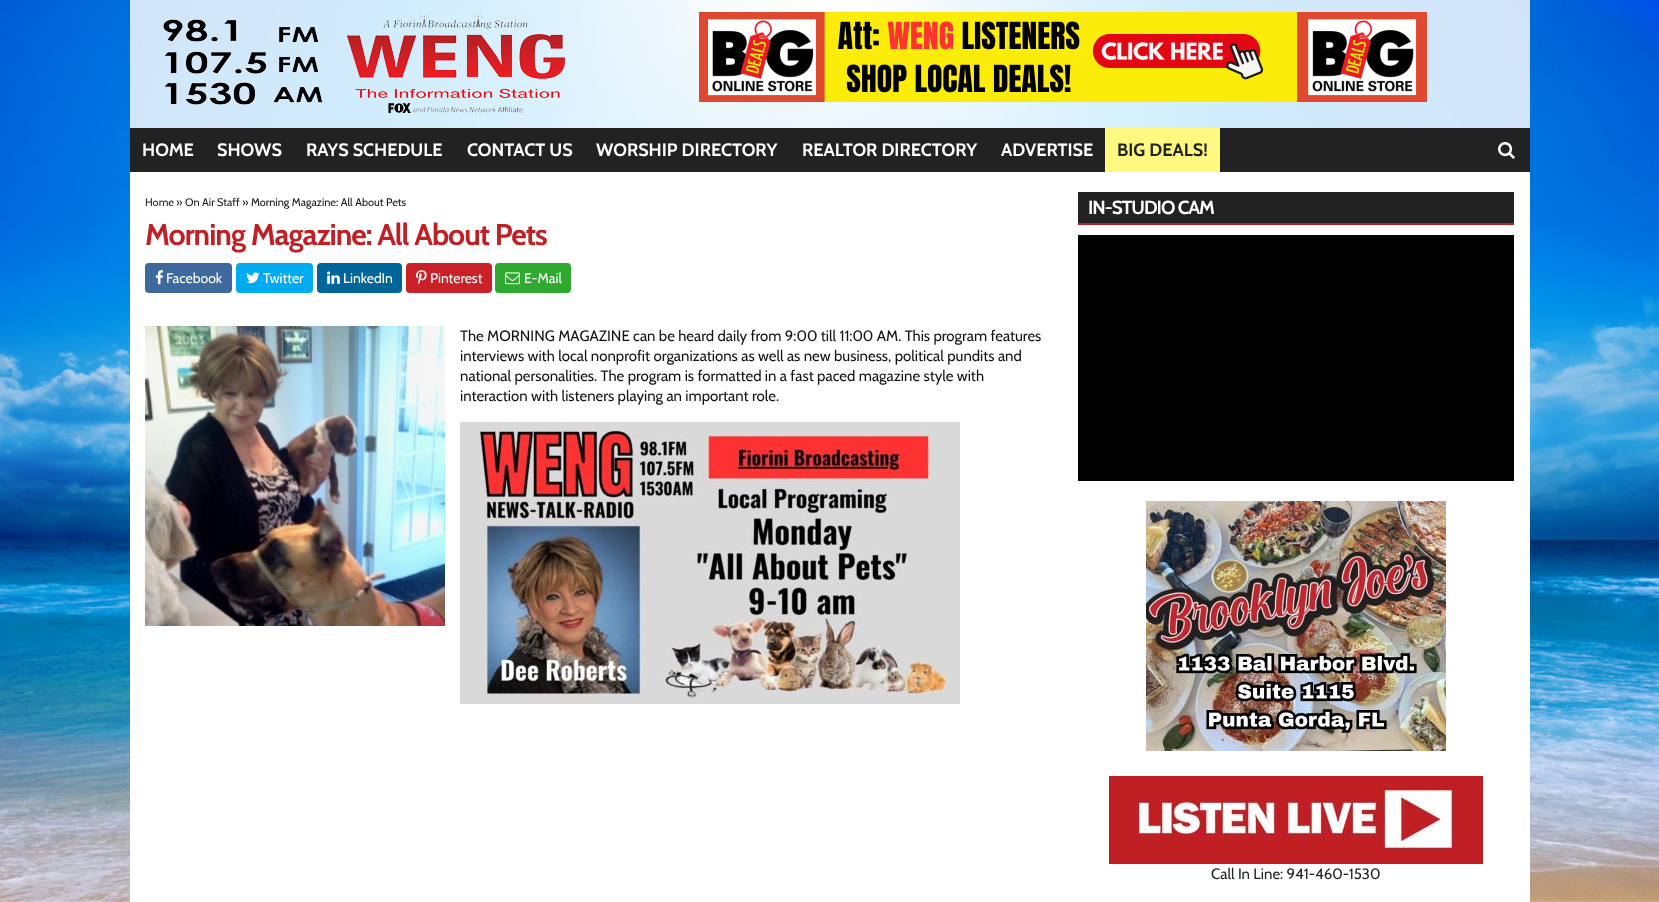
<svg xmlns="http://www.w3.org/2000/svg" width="1659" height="902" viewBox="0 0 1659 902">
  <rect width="100%" height="100%" fill="#fff"/>
  <image x="0" y="0" width="1659" height="902" href="img/1.png"/>
  <path d="M130 0h1400v128H130z" fill="#ffffffd1"/>
  <image x="163" y="13" width="402" height="100" href="img/2.png"/>
  <image x="699" y="12" width="728" height="90" href="img/3.png"/>
  <path d="M130 128h1400v44H130z" fill="#222"/>
  <path d="M1105 128h115v44H1105z" fill="#fff981"/>
  <image x="1498" y="142" width="17" height="17" href="img/4.png"/>
  <path d="M130 172h1400v730H130z" fill="#fff"/>
  <rect x="145" y="263" width="87" height="30" rx="4" fill="#3d699e"/>
  <image x="155" y="270" width="9" height="15" href="img/5.png"/>
  <rect x="236" y="263" width="77" height="30" rx="4" fill="#00abf0"/>
  <image x="246" y="272" width="14" height="12" href="img/6.png"/>
  <rect x="317" y="263" width="85" height="30" rx="4" fill="#069"/>
  <image x="327" y="271" width="13" height="13" href="img/7.png"/>
  <rect x="406" y="263" width="86" height="30" rx="4" fill="#ca2027"/>
  <image x="416" y="270" width="11" height="15" href="img/8.png"/>
  <rect x="495" y="263" width="76" height="30" rx="4" fill="#2fa92e"/>
  <image x="505" y="272" width="15" height="13" href="img/9.png"/>
  <image x="145" y="326" width="300" height="300" href="img/10.png"/>
  <image x="460" y="422" width="500" height="282" href="img/11.png"/>
  <path d="M1078 192h436v31H1078z" fill="#222"/>
  <path d="M1078 223h436v2H1078z" fill="#c01f24"/>
  <path d="M1078 235h436v246H1078z" fill="#000"/>
  <image x="1146" y="501" width="300" height="250" href="img/12.png"/>
  <image x="1109" y="776" width="374" height="88" href="img/13.png"/>
  <g font-family="Cabin" font-size="18" font-weight="bold" fill="#fff">
    <text x="142" y="156">HOME</text>
    <text x="217" y="156">SHOWS</text>
    <text x="306" y="156">RAYS SCHEDULE</text>
    <text x="467" y="156">CONTACT US</text>
    <text x="596" y="156">WORSHIP DIRECTORY</text>
    <text x="802" y="156">REALTOR DIRECTORY</text>
    <text x="1001" y="156">ADVERTISE</text>
  </g>
  <text x="1117" y="156" font-family="Cabin" font-size="18" font-weight="bold" fill="#222">BIG DEALS!</text>
  <text x="145" y="206" font-family="Cabin" font-size="11" fill="#222">Home</text>
  <text x="176" y="206" font-family="Cabin" font-size="11" fill="#141414">»</text>
  <text x="185" y="206" font-family="Cabin" font-size="11" fill="#222">On Air Staff</text>
  <text x="242" y="206" font-family="Cabin" font-size="11" fill="#141414">» Morning Magazine: All About Pets</text>
  <text x="145" y="245" font-family="Cabin" font-size="30" font-weight="bold" letter-spacing="-1" fill="#c01f24">Morning Magazine: All About Pets</text>
  <g font-family="Cabin" font-size="14" fill="#fff">
    <text x="166" y="283">Facebook</text>
    <text x="263" y="283">Twitter</text>
    <text x="343" y="283">LinkedIn</text>
    <text x="430" y="283">Pinterest</text>
    <text x="524" y="283">E-Mail</text>
  </g>
  <g font-family="Cabin" font-size="15" fill="#141414">
    <text x="460" y="341">The MORNING MAGAZINE can be heard daily from 9:00 till 11:00 AM. This program features</text>
    <text x="460" y="361">interviews with local nonprofit organizations as well as new business, political pundits and</text>
    <text x="460" y="381">national personalities. The program is formatted in a fast paced magazine style with</text>
    <text x="460" y="401">interaction with listeners playing an important role.</text>
  </g>
  <text x="1088" y="214" font-family="Cabin" font-size="19" font-weight="bold" letter-spacing="-1" fill="#fff">IN-STUDIO CAM</text>
  <text x="1211" y="879" font-family="Cabin" font-size="15" fill="#222">Call In Line: 941-460-1530</text>
</svg>
